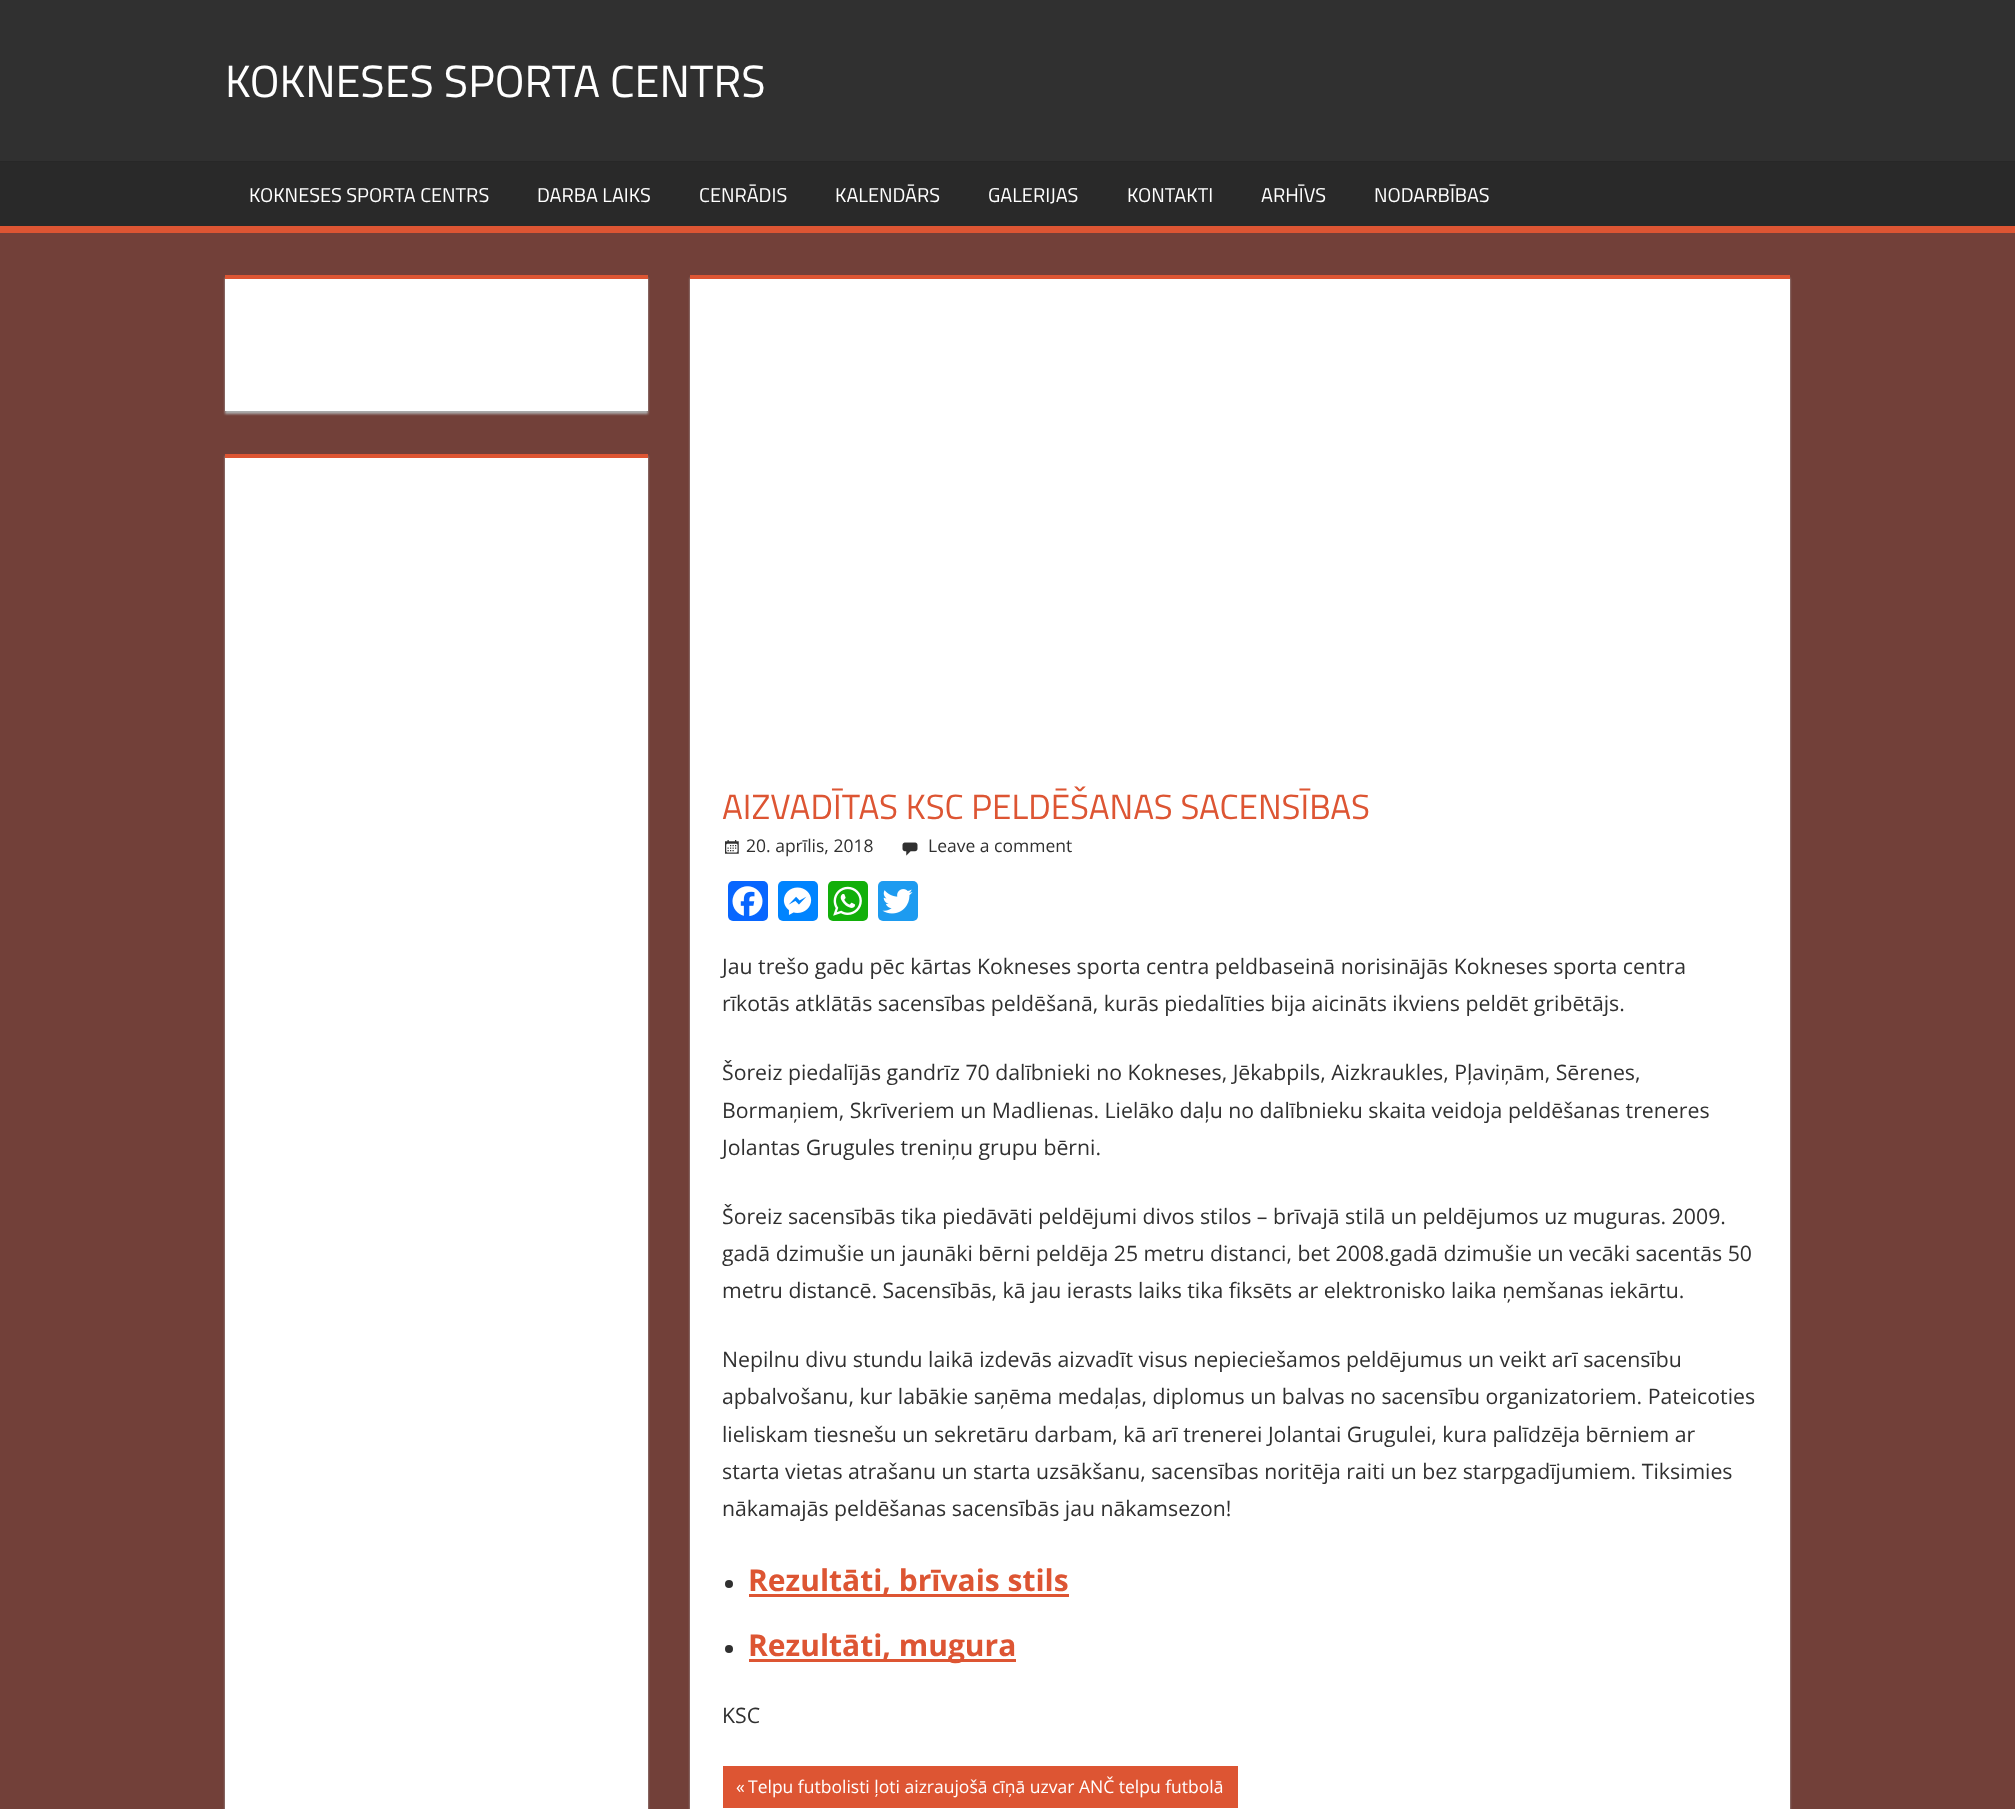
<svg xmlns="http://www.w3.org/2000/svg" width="2015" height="1809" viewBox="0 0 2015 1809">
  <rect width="100%" height="100%" fill="#724039"/>
  <path d="M0 0h2015v161H0z" fill="#303030"/>
  <path d="M0 162h2015v64H0z" fill="#292929"/>
  <path d="M0 161h2015v1H0z" fill="#272727"/>
  <path d="M0 226h2015v7H0z" fill="#d53"/>
  <path d="M225 278h423v136H225z" fill="#aaa" filter="blur(1px)"/>
  <path d="M225 279h423v132H225z" fill="#fff"/>
  <path d="M225 275h423v4H225z" fill="#d53"/>
  <path d="M225 456h423v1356H225z" fill="#aaa" filter="blur(1px)"/>
  <path d="M225 458h423v1351H225z" fill="#fff"/>
  <path d="M225 454h423v4H225z" fill="#d53"/>
  <path d="M690 278h1100v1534H690z" fill="#aaa" filter="blur(1px)"/>
  <path d="M690 279h1100v1530H690z" fill="#fff"/>
  <path d="M690 275h1100v4H690z" fill="#d53"/>
  <image x="725" y="840" width="14" height="14" href="img/1.png"/>
  <image x="902" y="842" width="16" height="14" href="img/2.png"/>
  <rect x="728" y="881" width="40" height="40" rx="5" fill="#0866ff"/>
  <image x="732" y="886" width="31" height="31" href="img/3.png"/>
  <rect x="778" y="881" width="40" height="40" rx="5" fill="#0084ff"/>
  <image x="783" y="887" width="29" height="28" href="img/4.png"/>
  <rect x="828" y="881" width="40" height="40" rx="5" fill="#12af0a"/>
  <image x="833" y="886" width="29" height="30" href="img/5.png"/>
  <rect x="878" y="881" width="40" height="40" rx="5" fill="#1d9bf0"/>
  <image x="882" y="889" width="31" height="25" href="img/6.png"/>
  <circle cx="729" cy="1584" r="4" fill="#303030"/>
  <path d="M749 1594h320v3H749z" fill="#d53"/>
  <circle cx="729" cy="1649" r="4" fill="#303030"/>
  <path d="M749 1659h267v3H749z" fill="#d53"/>
  <path d="M723 1766h515v42H723z" fill="#d53"/>
  <text x="225" y="97" font-family="Titillium Web" font-size="45" fill="#fff">KOKNESES SPORTA CENTRS</text>
  <g font-family="Titillium Web" font-size="20" fill="#fff">
    <text x="249" y="202">KOKNESES SPORTA CENTRS</text>
    <text x="537" y="202">DARBA LAIKS</text>
    <text x="699" y="202">CENRĀDIS</text>
    <text x="835" y="202">KALENDĀRS</text>
    <text x="988" y="202">GALERIJAS</text>
    <text x="1127" y="202">KONTAKTI</text>
    <text x="1261" y="202">ARHĪVS</text>
    <text x="1374" y="202">NODARBĪBAS</text>
  </g>
  <text x="722" y="819" font-family="Titillium Web" font-size="35" fill="#d53">AIZVADĪTAS KSC PELDĒŠANAS SACENSĪBAS</text>
  <g font-family="Open Sans" font-size="17.5" fill="#303030">
    <text x="746" y="852">20. aprīlis, 2018</text>
    <text x="928" y="852">Leave a comment</text>
  </g>
  <g font-family="Open Sans" font-size="21.25" fill="#303030">
    <text x="722" y="974">Jau trešo gadu pēc kārtas Kokneses sporta centra peldbaseinā norisinājās Kokneses sporta centra</text>
    <text x="722" y="1011">rīkotās atklātās sacensības peldēšanā, kurās piedalīties bija aicināts ikviens peldēt gribētājs.</text>
    <text x="722" y="1080">Šoreiz piedalījās gandrīz 70 dalībnieki no Kokneses, Jēkabpils, Aizkraukles, Pļaviņām, Sērenes,</text>
    <text x="722" y="1118">Bormaņiem, Skrīveriem un Madlienas. Lielāko daļu no dalībnieku skaita veidoja peldēšanas treneres</text>
    <text x="722" y="1155">Jolantas Grugules treniņu grupu bērni.</text>
    <text x="722" y="1224">Šoreiz sacensībās tika piedāvāti peldējumi divos stilos – brīvajā stilā un peldējumos uz muguras. 2009.</text>
    <text x="722" y="1261">gadā dzimušie un jaunāki bērni peldēja 25 metru distanci, bet 2008.gadā dzimušie un vecāki sacentās 50</text>
    <text x="722" y="1298">metru distancē. Sacensībās, kā jau ierasts laiks tika fiksēts ar elektronisko laika ņemšanas iekārtu.</text>
    <text x="722" y="1367">Nepilnu divu stundu laikā izdevās aizvadīt visus nepieciešamos peldējumus un veikt arī sacensību</text>
    <text x="722" y="1404">apbalvošanu, kur labākie saņēma medaļas, diplomus un balvas no sacensību organizatoriem. Pateicoties</text>
    <text x="722" y="1442">lieliskam tiesnešu un sekretāru darbam, kā arī trenerei Jolantai Grugulei, kura palīdzēja bērniem ar</text>
    <text x="722" y="1479">starta vietas atrašanu un starta uzsākšanu, sacensības noritēja raiti un bez starpgadījumiem. Tiksimies</text>
    <text x="722" y="1516">nākamajās peldēšanas sacensībās jau nākamsezon!</text>
  </g>
  <g font-family="Open Sans" font-size="30" font-weight="bold" fill="#d53">
    <text x="748" y="1591">Rezultāti, brīvais stils</text>
    <text x="748" y="1656">Rezultāti, mugura</text>
  </g>
  <text x="722" y="1723" font-family="Open Sans" font-size="21.25" fill="#303030">KSC</text>
  <g font-family="Open Sans" font-size="17.5" fill="#fff">
    <text x="736" y="1793">«</text>
    <text x="748" y="1793">Telpu futbolisti ļoti aizraujošā cīņā uzvar ANČ telpu futbolā</text>
  </g>
</svg>
